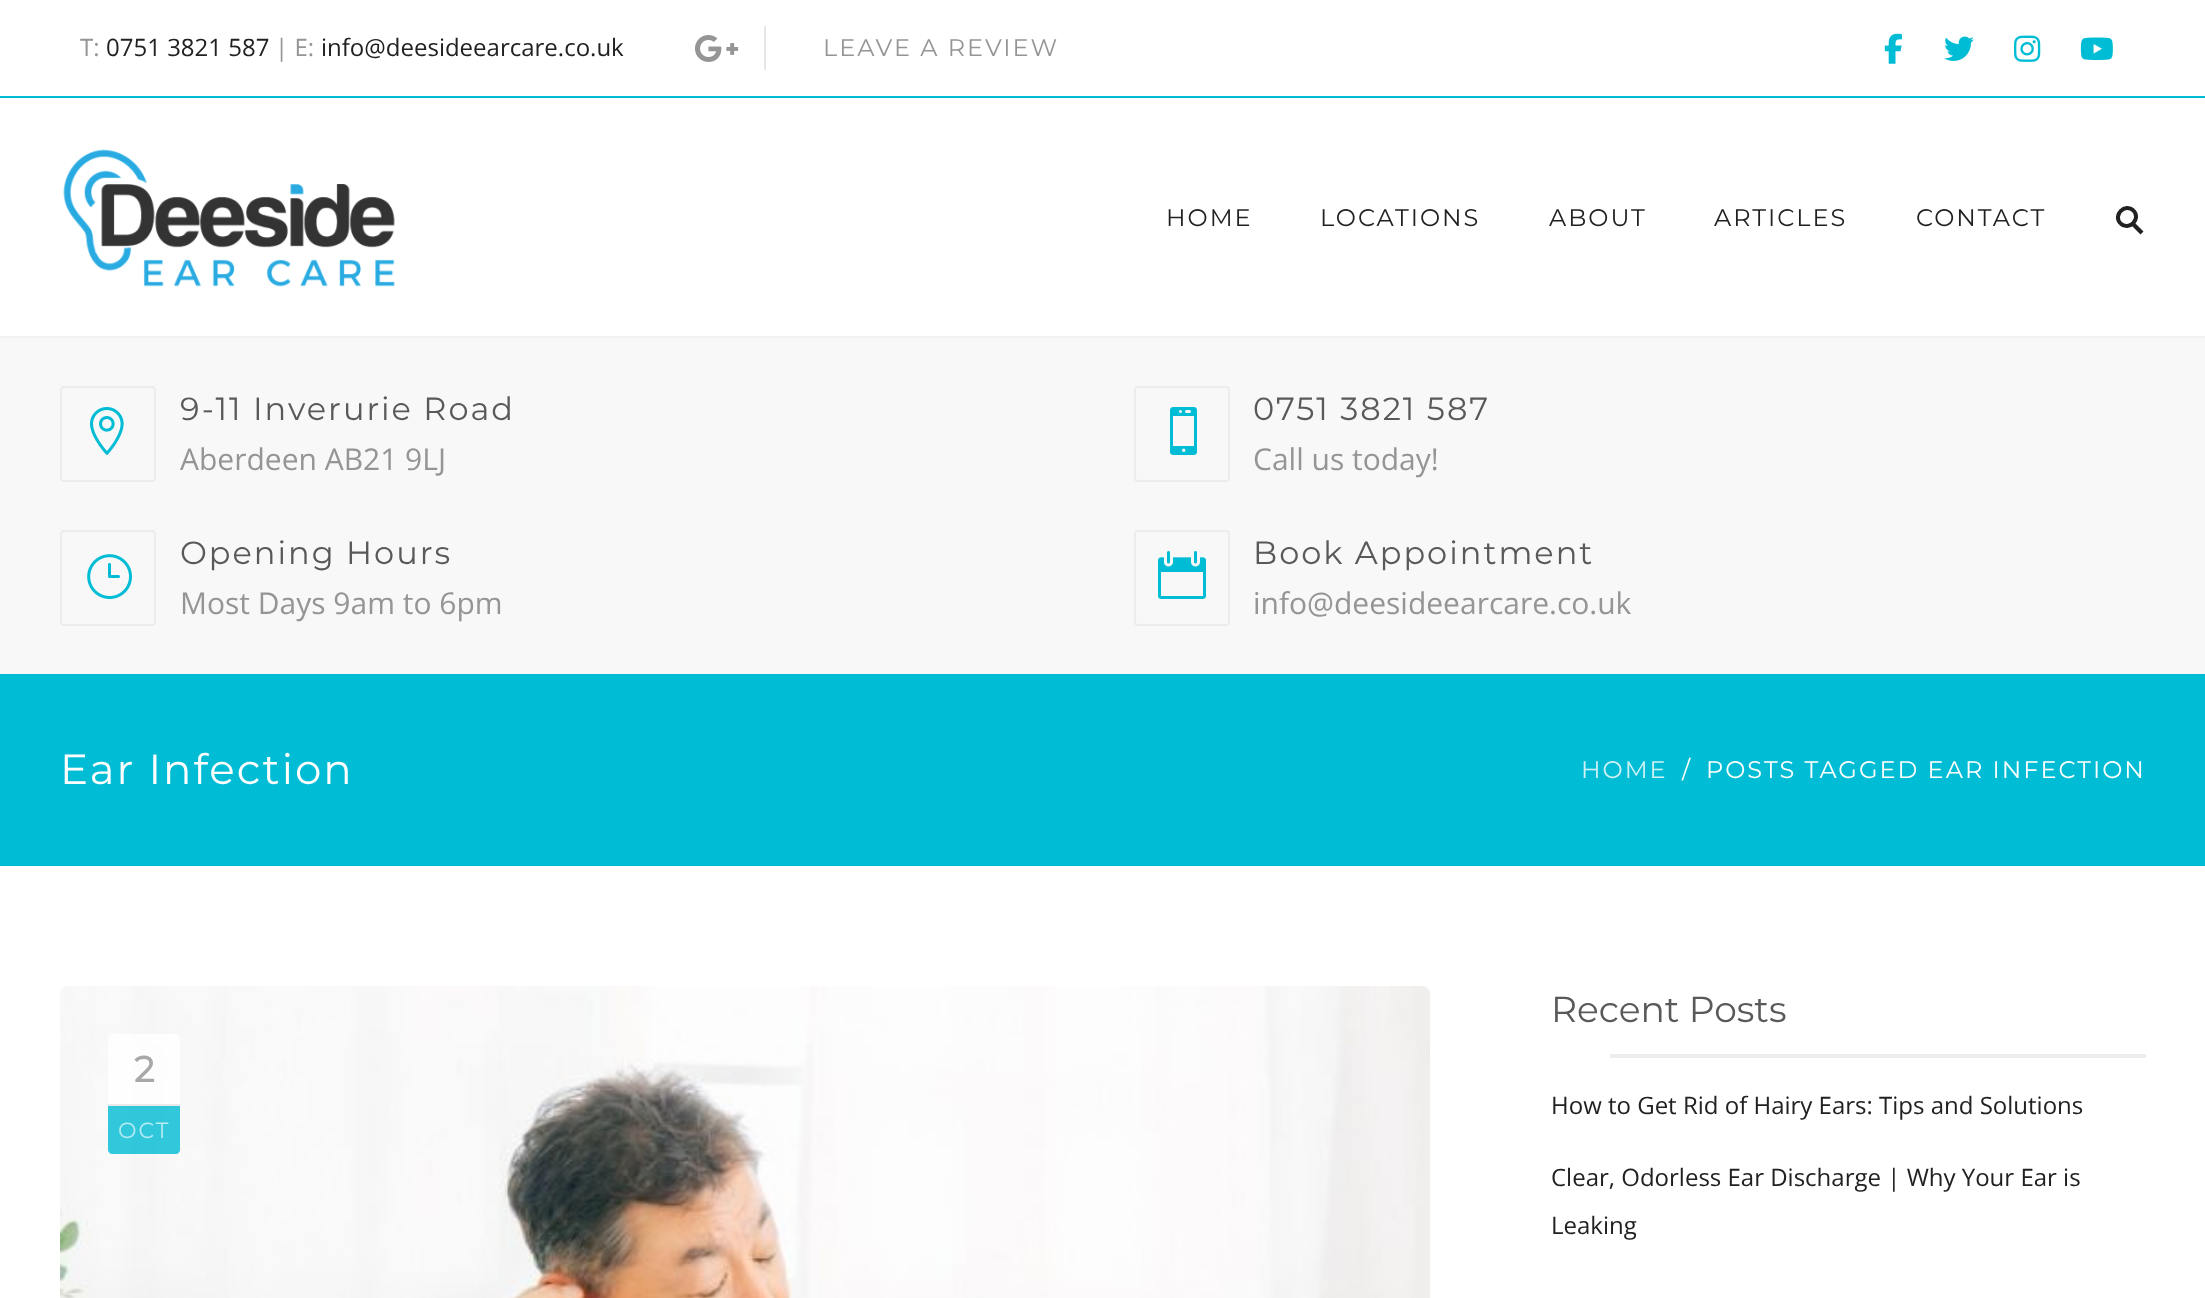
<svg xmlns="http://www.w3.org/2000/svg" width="2205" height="1298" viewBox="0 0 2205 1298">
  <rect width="100%" height="100%" fill="#fff"/>
  <path d="M0 96h2205v2H0z" fill="#00bcd4"/>
  <image x="694" y="35" width="45" height="27" href="img/1.png"/>
  <path d="M764 26h2v44H764z" fill="#e6e6e6"/>
  <image x="1884" y="33" width="18" height="31" href="img/2.png"/>
  <image x="1944" y="36" width="30" height="25" href="img/3.png"/>
  <image x="2014" y="35" width="27" height="27" href="img/4.png"/>
  <image x="2080" y="37" width="33" height="23" href="img/5.png"/>
  <path d="M0 336h2205v2H0z" fill="#f2f2f2"/>
  <image x="63" y="149" width="332" height="138" href="img/6.png"/>
  <path d="M2120.5 223.5C2112.5 215 2125 202.5 2133.5 210.5M2133.5 210.5C2141.5 219 2129 231.5 2120.5 223.5" fill="none" stroke="#212121" stroke-width="4"/>
  <path d="M2133.5 221.5L2143.5 231.5L2140.5 234.5L2130.5 224.5Z" fill="#212121"/>
  <path d="M0 338h2205v336H0z" fill="#f8f8f8"/>
  <rect x="61" y="387" width="94" height="94" rx="3" fill="none" stroke="#ececec" stroke-width="2"/>
  <image x="90" y="407" width="34" height="48" href="img/7.png"/>
  <rect x="1135" y="387" width="94" height="94" rx="3" fill="none" stroke="#ececec" stroke-width="2"/>
  <image x="1170" y="407" width="27" height="48" href="img/8.png"/>
  <rect x="61" y="531" width="94" height="94" rx="3" fill="none" stroke="#ececec" stroke-width="2"/>
  <image x="87" y="554" width="45" height="45" href="img/9.png"/>
  <rect x="1135" y="531" width="94" height="94" rx="3" fill="none" stroke="#ececec" stroke-width="2"/>
  <image x="1158" y="551" width="48" height="48" href="img/10.png"/>
  <path d="M0 674h2205v192H0z" fill="#00bcd4"/>
  <image x="60" y="986" width="1370" height="312" href="img/11.png"/>
  <path d="M112 1034H176C178 1034 180 1036 180 1038V1106H108V1038C108 1036 110 1034 112 1034Z" fill="#ffffffcc"/>
  <path d="M108 1104h72v2H108z" fill="#e9e9e9"/>
  <path d="M108 1106H180V1150C180 1152 178 1154 176 1154H112C110 1154 108 1152 108 1150Z" fill="#00bcd4cc"/>
  <path d="M1610 1054h536v4H1610z" fill="#ededed"/>
  <text x="80" y="56" font-family="Open Sans" font-size="24" fill="#959595">T:</text>
  <text x="106" y="56" font-family="Open Sans" font-size="24" fill="#212121">0751 3821 587</text>
  <text x="275" y="56" font-family="Open Sans" font-size="24" fill="#959595">| E:</text>
  <text x="321" y="56" font-family="Open Sans" font-size="24" fill="#212121">info@deesideearcare.co.uk</text>
  <text x="823" y="56" font-family="Montserrat" font-size="24" font-weight="100" letter-spacing="2" fill="#959595">LEAVE A REVIEW</text>
  <g font-family="Montserrat" font-size="24" font-weight="100" letter-spacing="2" fill="#212121">
    <text x="1166" y="226">HOME</text>
    <text x="1320" y="226">LOCATIONS</text>
    <text x="1549" y="226">ABOUT</text>
    <text x="1714" y="226">ARTICLES</text>
    <text x="1916" y="226">CONTACT</text>
  </g>
  <text x="180" y="420" font-family="Montserrat" font-size="32" font-weight="100" letter-spacing="2" fill="#595959">9-11 Inverurie Road</text>
  <text x="180" y="470" font-family="Open Sans" font-size="30" fill="#959595">Aberdeen AB21 9LJ</text>
  <text x="1253" y="420" font-family="Montserrat" font-size="32" font-weight="100" letter-spacing="2" fill="#595959">0751 3821 587</text>
  <text x="1253" y="470" font-family="Open Sans" font-size="30" fill="#959595">Call us today!</text>
  <text x="180" y="564" font-family="Montserrat" font-size="32" font-weight="100" letter-spacing="2" fill="#595959">Opening Hours</text>
  <text x="180" y="614" font-family="Open Sans" font-size="30" fill="#959595">Most Days 9am to 6pm</text>
  <text x="1253" y="564" font-family="Montserrat" font-size="32" font-weight="100" letter-spacing="2" fill="#595959">Book Appointment</text>
  <text x="1253" y="614" font-family="Open Sans" font-size="30" fill="#959595">info@deesideearcare.co.uk</text>
  <text x="60" y="784" font-family="Montserrat" font-size="42" font-weight="100" letter-spacing="2" fill="#fff">Ear Infection</text>
  <text x="1581" y="778" font-family="Montserrat" font-size="24" font-weight="100" letter-spacing="2" fill="#ccf2f6">HOME</text>
  <g font-family="Montserrat" font-size="24" font-weight="100" letter-spacing="2" fill="#fff">
    <text x="1682" y="778">/</text>
    <text x="1706" y="778">POSTS TAGGED EAR INFECTION</text>
  </g>
  <text x="134" y="1082" font-family="Montserrat" font-size="36" font-weight="bold" fill="#a8a8a8">2</text>
  <text x="118" y="1138" font-family="Montserrat" font-size="22" font-weight="100" letter-spacing="2" fill="#b5ebf2">OCT</text>
  <text x="1551" y="1022" font-family="Montserrat" font-size="36" font-weight="100" fill="#595959">Recent Posts</text>
  <g font-family="Open Sans" font-size="24" fill="#212121">
    <text x="1551" y="1114">How to Get Rid of Hairy Ears: Tips and Solutions</text>
    <text x="1551" y="1186">Clear, Odorless Ear Discharge | Why Your Ear is</text>
    <text x="1551" y="1234">Leaking</text>
  </g>
</svg>
